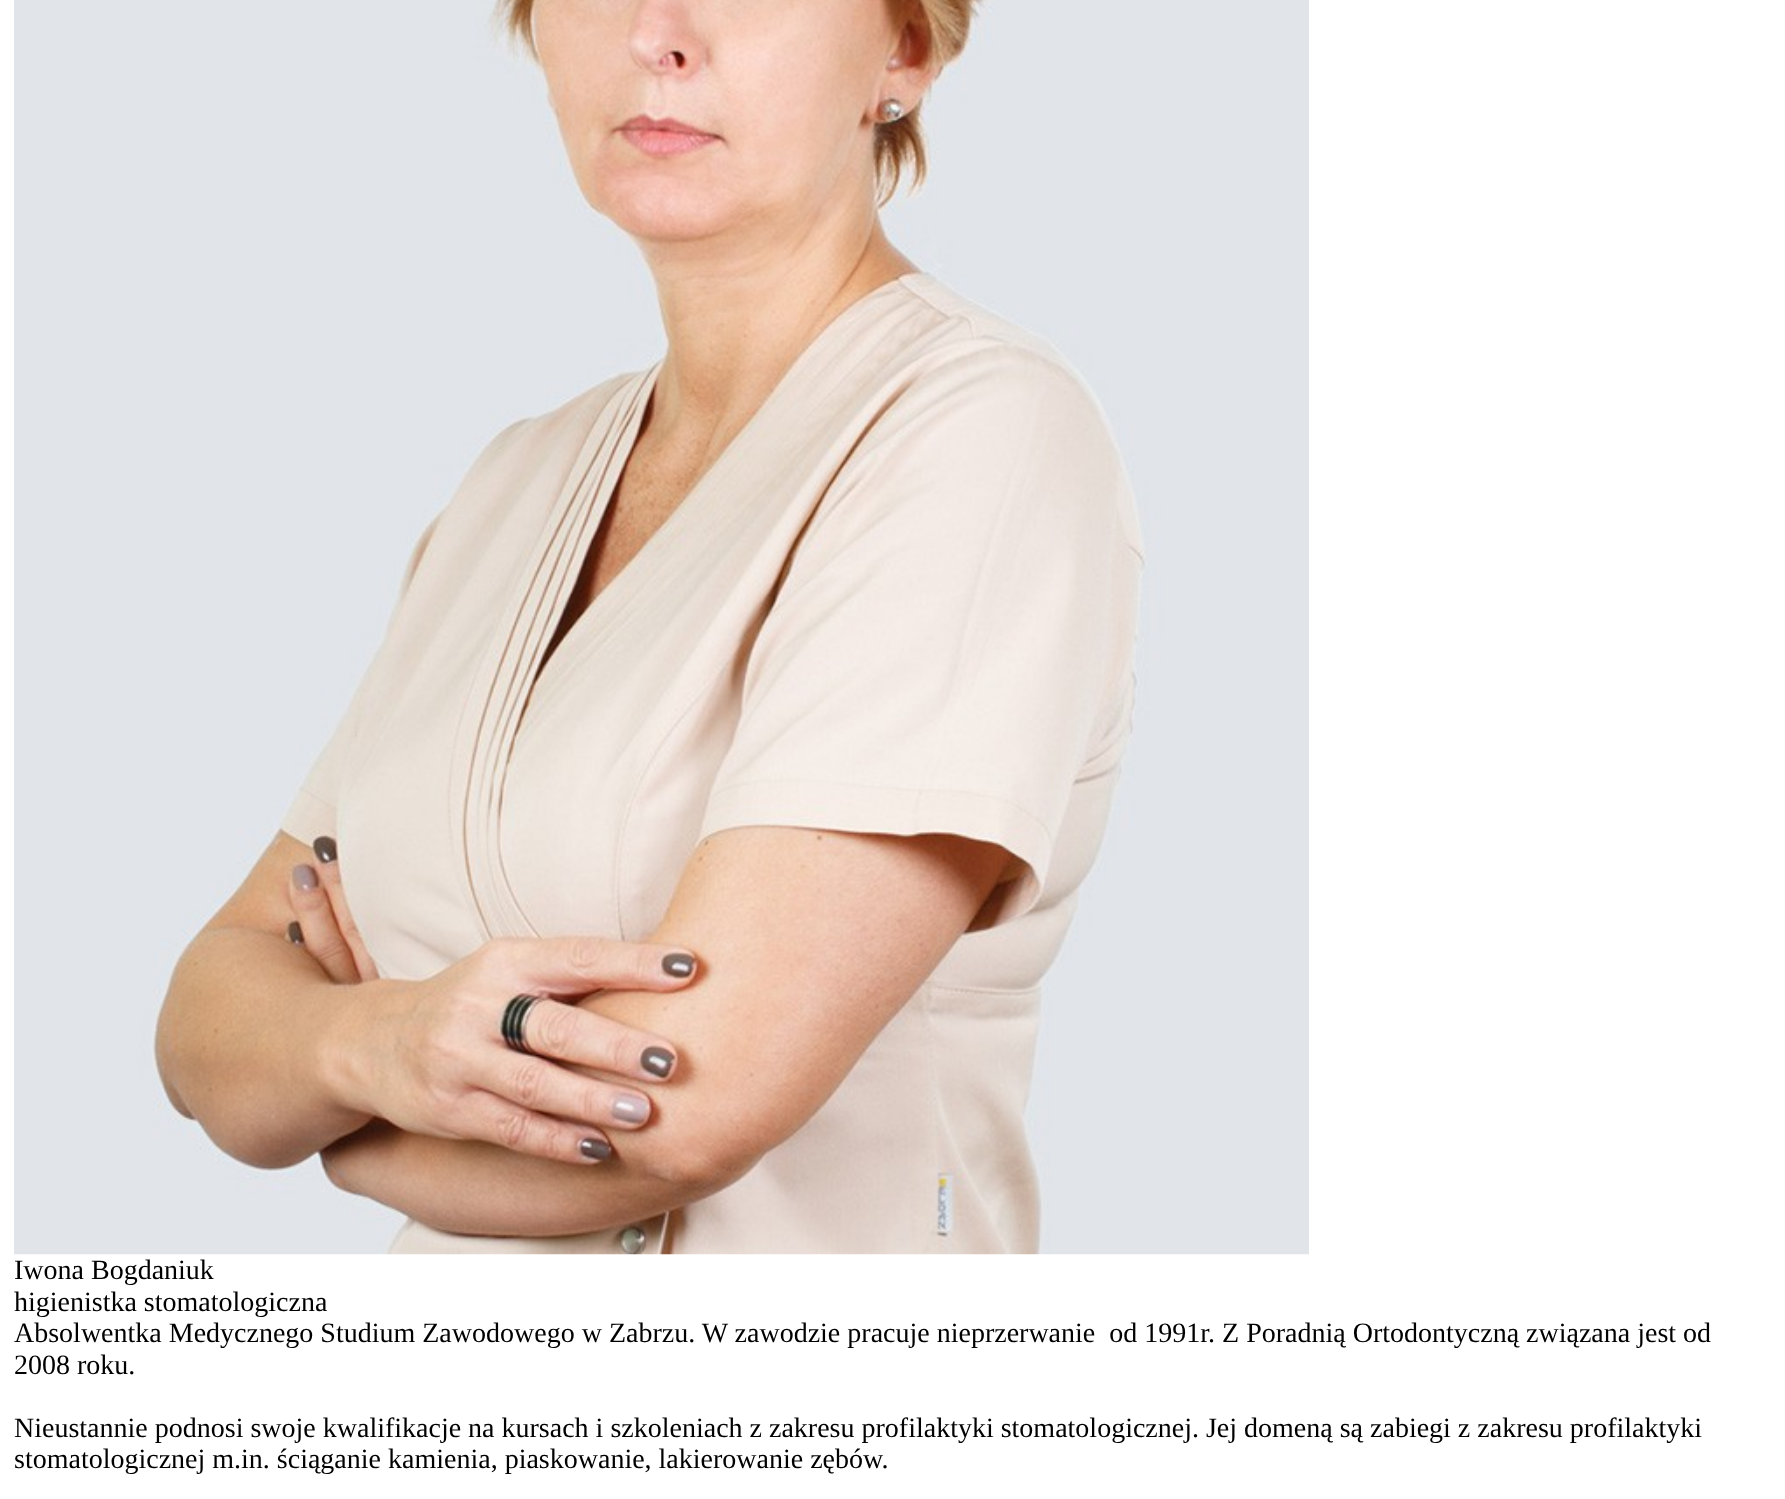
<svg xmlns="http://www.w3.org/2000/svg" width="1785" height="1499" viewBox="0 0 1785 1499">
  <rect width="100%" height="100%" fill="#fff"/>
  <image x="14" y="0" width="1295" height="1255" href="img/1.png"/>
  <g font-family="Liberation Serif" font-size="28" fill="#000">
    <text x="14" y="1279">Iwona Bogdaniuk</text>
    <text x="14" y="1311">higienistka stomatologiczna</text>
    <text x="14" y="1342" xml:space="preserve">Absolwentka Medycznego Studium Zawodowego w Zabrzu. W zawodzie pracuje nieprzerwanie  od 1991r. Z Poradnią Ortodontyczną związana jest od</text>
    <text x="14" y="1374">2008 roku.</text>
    <text x="14" y="1437">Nieustannie podnosi swoje kwalifikacje na kursach i szkoleniach z zakresu profilaktyki stomatologicznej. Jej domeną są zabiegi z zakresu profilaktyki</text>
    <text x="14" y="1468">stomatologicznej m.in. ściąganie kamienia, piaskowanie, lakierowanie zębów.</text>
  </g>
</svg>
